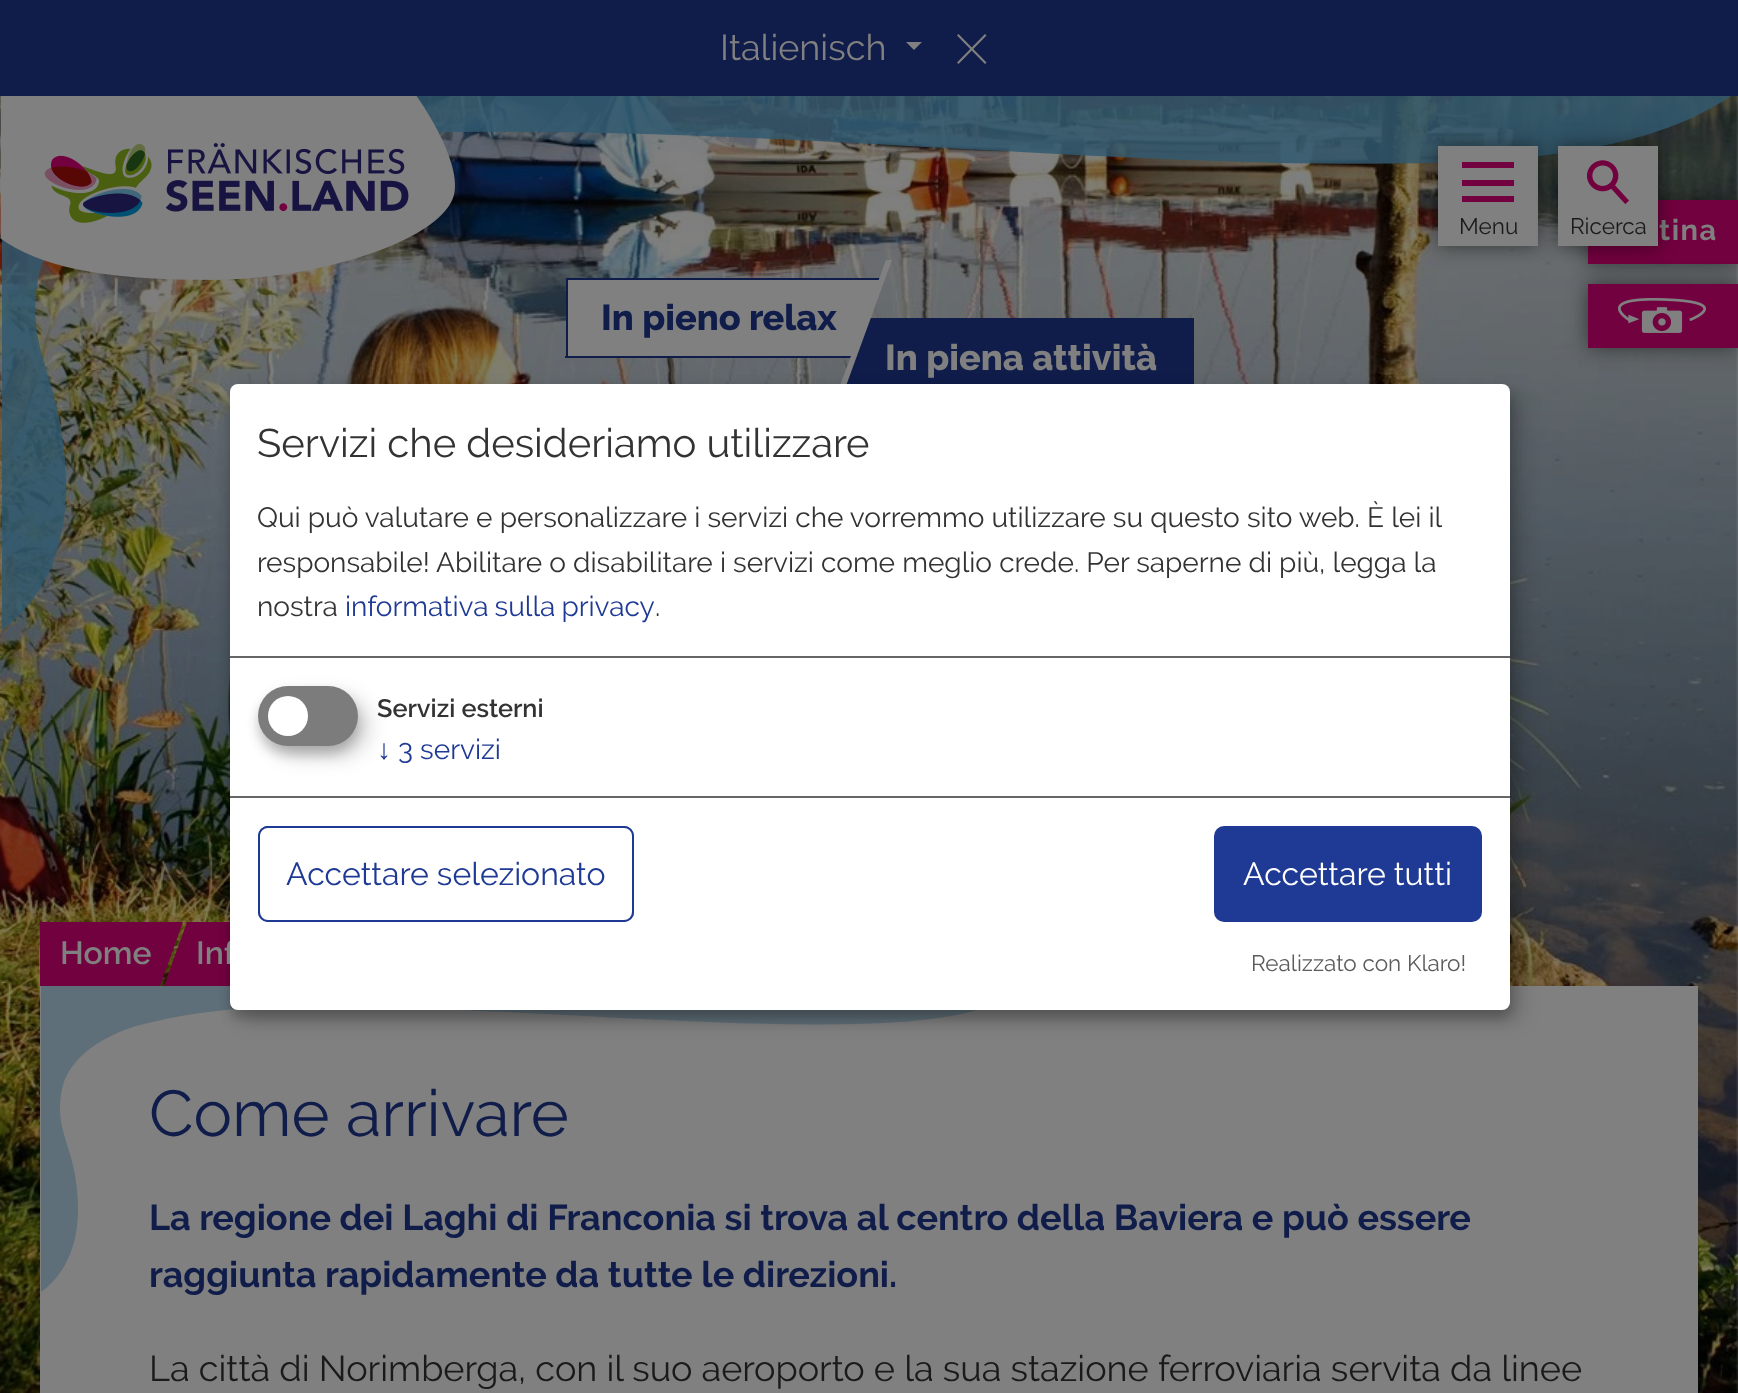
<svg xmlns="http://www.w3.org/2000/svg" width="1738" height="1393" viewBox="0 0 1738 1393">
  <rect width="100%" height="100%" fill="#fff"/>
  <path d="M0 0h1738v96H0z" fill="#101d4a"/>
  <path d="M906 42H922L914 50Z" fill="#808080"/>
  <path d="M958.5 34L986.5 62.5L985 64L957 35.5Z" fill="#808080"/>
  <path d="M957 62.5L985 34L986.5 35.5L958.5 64Z" fill="#808080"/>
  <image x="0" y="96" width="1738" height="1297" href="img/2.png"/>
  <path d="M1588 200h150v64H1588z" fill="#00000080" filter="blur(10px)"/>
  <path d="M1588 200h150v64H1588z" fill="#72013f"/>
  <path d="M1588 284h150v64H1588z" fill="#00000080" filter="blur(10px)"/>
  <path d="M1588 284h150v64H1588z" fill="#72013f"/>
  <image x="1618" y="298" width="88" height="35" href="img/4.png"/>
  <path d="M868 318H1194L1164 398H838Z" fill="#101d4a"/>
  <path d="M868 318H1194L1193 320H867Z" fill="#101d4a"/>
  <path d="M594 278H884L854 358H565Z" fill="#808080"/>
  <path d="M594 278H884L883 280H593Z" fill="#101d4a"/>
  <path d="M565 356H855L854 358H565Z" fill="#101d4a"/>
  <path d="M594 278H596L567 358H565Z" fill="#101d4a"/>
  <path d="M568 280h28v75H568z" fill="#808080"/>
  <path d="M566 278h32v2H566z" fill="#101d4a"/>
  <path d="M566 278h2v80H566z" fill="#101d4a"/>
  <path d="M886 260H892L835 416H829Z" fill="#808080"/>
  <path d="M1169 318h25v66H1169z" fill="#101d4a"/>
  <path d="M187 922H561L538 986H164Z" fill="#72013f"/>
  <path d="M64 922H183L160 986H40Z" fill="#72013f"/>
  <path d="M40 922h24v64H40z" fill="#72013f"/>
  <path d="M40 986h1658v407H40z" fill="#808080"/>
  <path d="M41 986V1292C61 1278 79 1250 78 1206C77 1146 53 1134 62 1089C71 1048 122 1030 140 1025C182 1015 218 1007 303 1007C491 1005 692 1028 858 1024C939 1022 993 1012 1031 986" fill="#5f6f79"/>
  <text x="720" y="60" font-family="Raleway" font-size="36" fill="#808080">Italienisch</text>
  <text x="1659" y="240" font-family="Raleway" font-size="29" font-weight="bold" letter-spacing="1.5" fill="#808080">tina</text>
  <text x="601" y="330" font-family="Raleway" font-size="36" font-weight="800" fill="#101d4a">In pieno relax</text>
  <text x="885" y="370" font-family="Raleway" font-size="36" font-weight="800" fill="#808080">In piena attività</text>
  <path d="M2 96V630C36 606 68 557 66 480C64 376 23 354 39 275C54 205 144 172 174 165C248 146 311 133 460 132C788 128 1140 170 1429 163C1570 159 1664 141 1731 96" fill="#315970d9"/>
  <path d="M1438 146h100v100H1438z" fill="#00000080" filter="blur(10px)"/>
  <path d="M1438 146h100v100H1438z" fill="#808080"/>
  <path d="M1558 146h100v100H1558z" fill="#00000080" filter="blur(10px)"/>
  <path d="M1558 146h100v100H1558z" fill="#808080"/>
  <text x="1570" y="234" font-family="Raleway" font-size="22.5" fill="#1a1a1a">Ricerca</text>
  <image x="1587" y="160" width="42" height="44" href="img/1.png"/>
  <text x="1459" y="234" font-family="Raleway" font-size="22.5" fill="#1a1a1a">Menu</text>
  <path d="M1462 196h52v6H1462z" fill="#72013f"/>
  <path d="M1462 180h52v6H1462z" fill="#72013f"/>
  <path d="M1462 162h52v6H1462z" fill="#72013f"/>
  <image x="0" y="96" width="455" height="184" href="img/3.png"/>
  <rect x="240" y="394" width="1280" height="626" rx="8" fill="#00000030" filter="blur(10px)"/>
  <rect x="230" y="392" width="1280" height="626" rx="8" fill="#00000033" filter="blur(6px)"/>
  <g font-family="Raleway" font-size="32" font-weight="600" fill="#808080">
    <text x="60" y="964">Home</text>
    <text x="196" y="964">Inf</text>
  </g>
  <rect x="230" y="384" width="1280" height="626" rx="8" fill="#fff"/>
  <rect x="1214" y="826" width="268" height="96" rx="10" fill="#1f3a94"/>
  <text x="1243" y="885" font-family="Raleway" font-size="32" fill="#fff">Accettare tutti</text>
  <rect x="259" y="827" width="374" height="94" rx="9" fill="none" stroke="#1f3a94" stroke-width="2"/>
  <rect x="259" y="827" width="374" height="94" rx="9" fill="#fff" stroke="#1f3a94" stroke-width="2"/>
  <text x="286" y="885" font-family="Raleway" font-size="32" fill="#1f3a94">Accettare selezionato</text>
  <rect x="258" y="694" width="100" height="60" rx="30" fill="#00000033" filter="blur(6px)"/>
  <rect x="268" y="696" width="100" height="60" rx="30" fill="#00000030" filter="blur(10px)"/>
  <rect x="258" y="686" width="100" height="60" rx="30" fill="#7c7c7c"/>
  <circle cx="288" cy="716" r="20" fill="#fff"/>
  <text x="398" y="759" font-family="Raleway" font-size="28" fill="#1f3a94">3 servizi</text>
  <text x="377" y="759" font-family="Liberation Sans" font-size="28" fill="#1f3a94">↓</text>
  <text x="377" y="717" font-family="Raleway" font-size="25.25" font-weight="600" fill="#333">Servizi esterni</text>
  <text x="1251" y="971" font-family="Raleway" font-size="22.5" fill="#5c5c5c">Realizzato con Klaro!</text>
  <text x="655" y="616" font-family="Raleway" font-size="28" fill="#333">.</text>
  <text x="345" y="616" word-spacing="-1" font-family="Raleway" font-size="28" fill="#1f3a94">informativa sulla privacy</text>
  <g font-family="Raleway" font-size="28" fill="#333">
    <text x="257" y="616">nostra</text>
    <text x="257" y="572">responsabile! Abilitare o disabilitare i servizi come meglio crede. Per saperne di più, legga la</text>
    <text x="257" y="527">Qui può valutare e personalizzare i servizi che vorremmo utilizzare su questo sito web. È lei il</text>
  </g>
  <text x="257" y="457" font-family="Raleway" font-size="40" fill="#333">Servizi che desideriamo utilizzare</text>
  <path d="M230 796h1280v2H230z" fill="#666"/>
  <path d="M230 656h1280v2H230z" fill="#666"/>
  <text x="149" y="1136" font-family="Raleway" font-size="64.75" fill="#101d4a">Come arrivare</text>
  <g font-family="Raleway" font-size="36" font-weight="bold" fill="#101d4a">
    <text x="149" y="1230">La regione dei Laghi di Franconia si trova al centro della Baviera e può essere</text>
    <text x="149" y="1287">raggiunta rapidamente da tutte le direzioni.</text>
  </g>
  <text x="149" y="1381" font-family="Raleway" font-size="36" fill="#1a1a1a">La città di Norimberga, con il suo aeroporto e la sua stazione ferroviaria servita da linee</text>
</svg>
